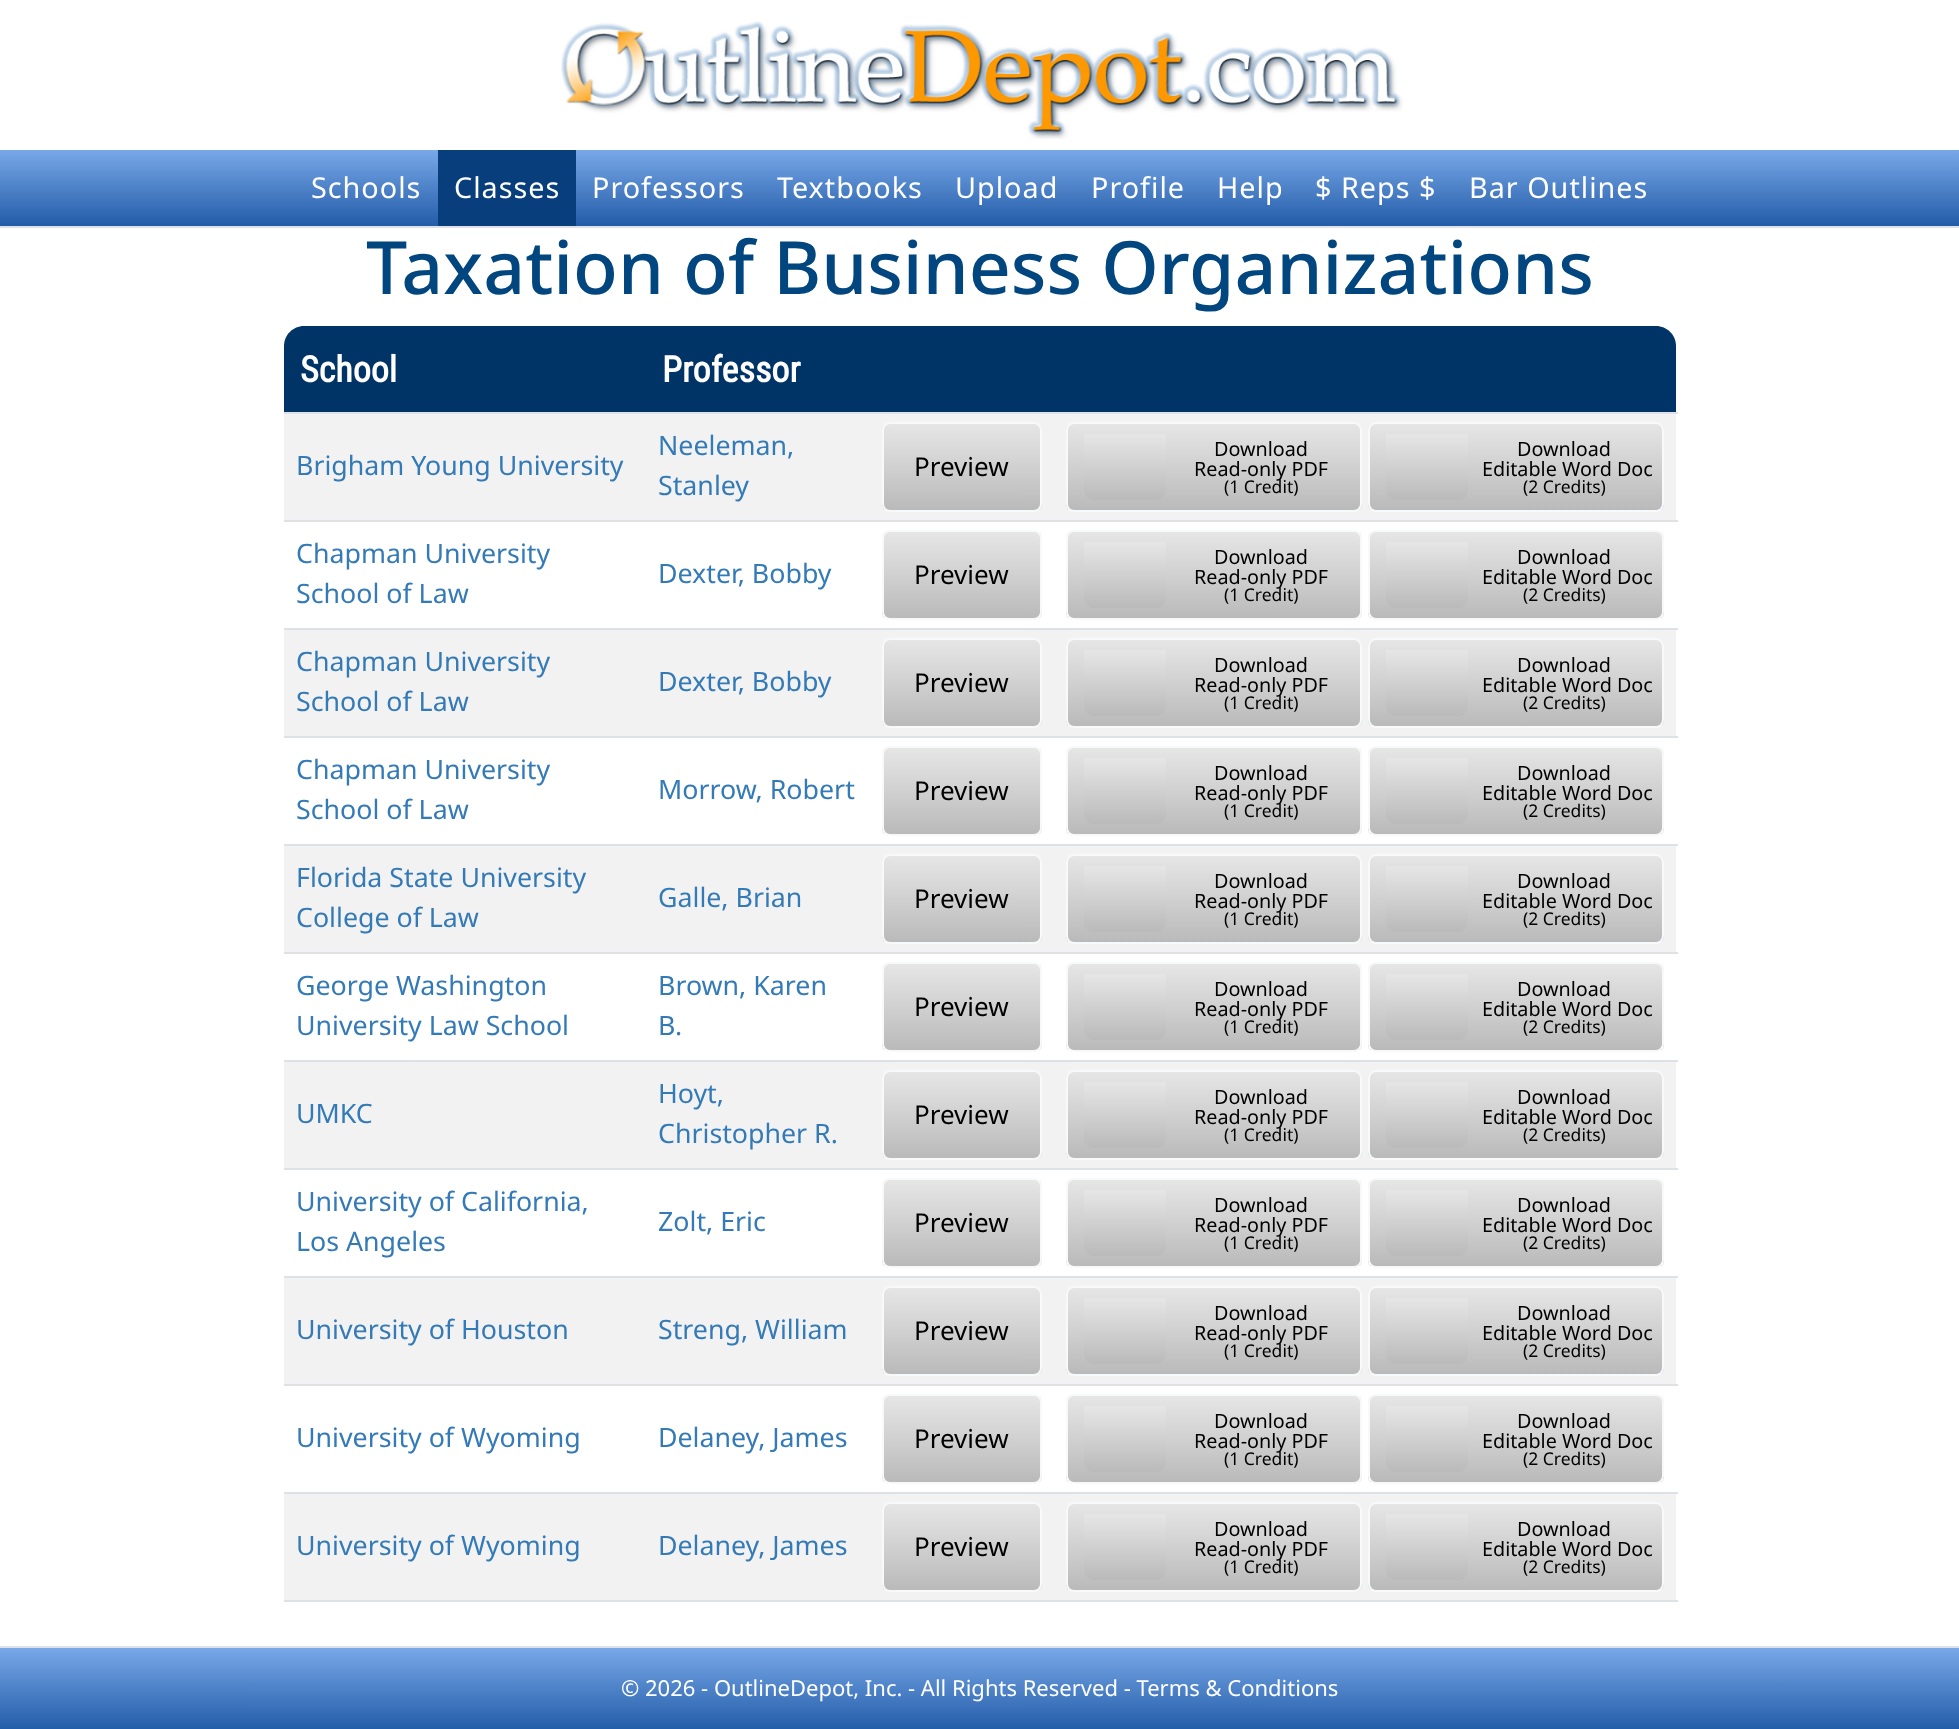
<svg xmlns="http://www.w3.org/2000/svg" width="1959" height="1729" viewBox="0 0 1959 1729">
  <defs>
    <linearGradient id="g1" gradientUnits="userSpaceOnUse" x1="980" y1="150" x2="980" y2="226"><stop offset="0" stop-color="#78a8e8"/><stop offset="1" stop-color="#235ca8"/></linearGradient>
    <clipPath id="clip1"><rect x="882" y="422" width="160" height="90" rx="8"/></clipPath>
    <linearGradient id="g2" gradientUnits="userSpaceOnUse" x1="962" y1="424" x2="962" y2="510"><stop offset="0" stop-color="#e6e6e6"/><stop offset="1" stop-color="#bababa"/></linearGradient>
    <clipPath id="clip2"><rect x="1066" y="422" width="296" height="90" rx="8"/></clipPath>
    <linearGradient id="g3" gradientUnits="userSpaceOnUse" x1="1214" y1="424" x2="1214" y2="510"><stop offset="0" stop-color="#e6e6e6"/><stop offset="1" stop-color="#bababa"/></linearGradient>
    <linearGradient id="g4" gradientUnits="userSpaceOnUse" x1="1125" y1="434" x2="1125" y2="500"><stop offset="0" stop-color="#e6e6e6"/><stop offset="1" stop-color="#bababa"/></linearGradient>
    <clipPath id="clip3"><rect x="1368" y="422" width="296" height="90" rx="8"/></clipPath>
    <linearGradient id="g5" gradientUnits="userSpaceOnUse" x1="1516" y1="424" x2="1516" y2="510"><stop offset="0" stop-color="#e6e6e6"/><stop offset="1" stop-color="#bababa"/></linearGradient>
    <linearGradient id="g6" gradientUnits="userSpaceOnUse" x1="1427" y1="434" x2="1427" y2="500"><stop offset="0" stop-color="#e6e6e6"/><stop offset="1" stop-color="#bababa"/></linearGradient>
    <clipPath id="clip4"><rect x="882" y="530" width="160" height="90" rx="8"/></clipPath>
    <linearGradient id="g7" gradientUnits="userSpaceOnUse" x1="962" y1="532" x2="962" y2="618"><stop offset="0" stop-color="#e6e6e6"/><stop offset="1" stop-color="#bababa"/></linearGradient>
    <clipPath id="clip5"><rect x="1066" y="530" width="296" height="90" rx="8"/></clipPath>
    <linearGradient id="g8" gradientUnits="userSpaceOnUse" x1="1214" y1="532" x2="1214" y2="618"><stop offset="0" stop-color="#e6e6e6"/><stop offset="1" stop-color="#bababa"/></linearGradient>
    <linearGradient id="g9" gradientUnits="userSpaceOnUse" x1="1125" y1="542" x2="1125" y2="608"><stop offset="0" stop-color="#e6e6e6"/><stop offset="1" stop-color="#bababa"/></linearGradient>
    <clipPath id="clip6"><rect x="1368" y="530" width="296" height="90" rx="8"/></clipPath>
    <linearGradient id="g10" gradientUnits="userSpaceOnUse" x1="1516" y1="532" x2="1516" y2="618"><stop offset="0" stop-color="#e6e6e6"/><stop offset="1" stop-color="#bababa"/></linearGradient>
    <linearGradient id="g11" gradientUnits="userSpaceOnUse" x1="1427" y1="542" x2="1427" y2="608"><stop offset="0" stop-color="#e6e6e6"/><stop offset="1" stop-color="#bababa"/></linearGradient>
    <clipPath id="clip7"><rect x="882" y="638" width="160" height="90" rx="8"/></clipPath>
    <linearGradient id="g12" gradientUnits="userSpaceOnUse" x1="962" y1="640" x2="962" y2="726"><stop offset="0" stop-color="#e6e6e6"/><stop offset="1" stop-color="#bababa"/></linearGradient>
    <clipPath id="clip8"><rect x="1066" y="638" width="296" height="90" rx="8"/></clipPath>
    <linearGradient id="g13" gradientUnits="userSpaceOnUse" x1="1214" y1="640" x2="1214" y2="726"><stop offset="0" stop-color="#e6e6e6"/><stop offset="1" stop-color="#bababa"/></linearGradient>
    <linearGradient id="g14" gradientUnits="userSpaceOnUse" x1="1125" y1="650" x2="1125" y2="716"><stop offset="0" stop-color="#e6e6e6"/><stop offset="1" stop-color="#bababa"/></linearGradient>
    <clipPath id="clip9"><rect x="1368" y="638" width="296" height="90" rx="8"/></clipPath>
    <linearGradient id="g15" gradientUnits="userSpaceOnUse" x1="1516" y1="640" x2="1516" y2="726"><stop offset="0" stop-color="#e6e6e6"/><stop offset="1" stop-color="#bababa"/></linearGradient>
    <linearGradient id="g16" gradientUnits="userSpaceOnUse" x1="1427" y1="650" x2="1427" y2="716"><stop offset="0" stop-color="#e6e6e6"/><stop offset="1" stop-color="#bababa"/></linearGradient>
    <clipPath id="clip10"><rect x="882" y="746" width="160" height="90" rx="8"/></clipPath>
    <linearGradient id="g17" gradientUnits="userSpaceOnUse" x1="962" y1="748" x2="962" y2="834"><stop offset="0" stop-color="#e6e6e6"/><stop offset="1" stop-color="#bababa"/></linearGradient>
    <clipPath id="clip11"><rect x="1066" y="746" width="296" height="90" rx="8"/></clipPath>
    <linearGradient id="g18" gradientUnits="userSpaceOnUse" x1="1214" y1="748" x2="1214" y2="834"><stop offset="0" stop-color="#e6e6e6"/><stop offset="1" stop-color="#bababa"/></linearGradient>
    <linearGradient id="g19" gradientUnits="userSpaceOnUse" x1="1125" y1="758" x2="1125" y2="824"><stop offset="0" stop-color="#e6e6e6"/><stop offset="1" stop-color="#bababa"/></linearGradient>
    <clipPath id="clip12"><rect x="1368" y="746" width="296" height="90" rx="8"/></clipPath>
    <linearGradient id="g20" gradientUnits="userSpaceOnUse" x1="1516" y1="748" x2="1516" y2="834"><stop offset="0" stop-color="#e6e6e6"/><stop offset="1" stop-color="#bababa"/></linearGradient>
    <linearGradient id="g21" gradientUnits="userSpaceOnUse" x1="1427" y1="758" x2="1427" y2="824"><stop offset="0" stop-color="#e6e6e6"/><stop offset="1" stop-color="#bababa"/></linearGradient>
    <clipPath id="clip13"><rect x="882" y="854" width="160" height="90" rx="8"/></clipPath>
    <linearGradient id="g22" gradientUnits="userSpaceOnUse" x1="962" y1="856" x2="962" y2="942"><stop offset="0" stop-color="#e6e6e6"/><stop offset="1" stop-color="#bababa"/></linearGradient>
    <clipPath id="clip14"><rect x="1066" y="854" width="296" height="90" rx="8"/></clipPath>
    <linearGradient id="g23" gradientUnits="userSpaceOnUse" x1="1214" y1="856" x2="1214" y2="942"><stop offset="0" stop-color="#e6e6e6"/><stop offset="1" stop-color="#bababa"/></linearGradient>
    <linearGradient id="g24" gradientUnits="userSpaceOnUse" x1="1125" y1="866" x2="1125" y2="932"><stop offset="0" stop-color="#e6e6e6"/><stop offset="1" stop-color="#bababa"/></linearGradient>
    <clipPath id="clip15"><rect x="1368" y="854" width="296" height="90" rx="8"/></clipPath>
    <linearGradient id="g25" gradientUnits="userSpaceOnUse" x1="1516" y1="856" x2="1516" y2="942"><stop offset="0" stop-color="#e6e6e6"/><stop offset="1" stop-color="#bababa"/></linearGradient>
    <linearGradient id="g26" gradientUnits="userSpaceOnUse" x1="1427" y1="866" x2="1427" y2="932"><stop offset="0" stop-color="#e6e6e6"/><stop offset="1" stop-color="#bababa"/></linearGradient>
    <clipPath id="clip16"><rect x="882" y="962" width="160" height="90" rx="8"/></clipPath>
    <linearGradient id="g27" gradientUnits="userSpaceOnUse" x1="962" y1="964" x2="962" y2="1050"><stop offset="0" stop-color="#e6e6e6"/><stop offset="1" stop-color="#bababa"/></linearGradient>
    <clipPath id="clip17"><rect x="1066" y="962" width="296" height="90" rx="8"/></clipPath>
    <linearGradient id="g28" gradientUnits="userSpaceOnUse" x1="1214" y1="964" x2="1214" y2="1050"><stop offset="0" stop-color="#e6e6e6"/><stop offset="1" stop-color="#bababa"/></linearGradient>
    <linearGradient id="g29" gradientUnits="userSpaceOnUse" x1="1125" y1="974" x2="1125" y2="1040"><stop offset="0" stop-color="#e6e6e6"/><stop offset="1" stop-color="#bababa"/></linearGradient>
    <clipPath id="clip18"><rect x="1368" y="962" width="296" height="90" rx="8"/></clipPath>
    <linearGradient id="g30" gradientUnits="userSpaceOnUse" x1="1516" y1="964" x2="1516" y2="1050"><stop offset="0" stop-color="#e6e6e6"/><stop offset="1" stop-color="#bababa"/></linearGradient>
    <linearGradient id="g31" gradientUnits="userSpaceOnUse" x1="1427" y1="974" x2="1427" y2="1040"><stop offset="0" stop-color="#e6e6e6"/><stop offset="1" stop-color="#bababa"/></linearGradient>
    <clipPath id="clip19"><rect x="882" y="1070" width="160" height="90" rx="8"/></clipPath>
    <linearGradient id="g32" gradientUnits="userSpaceOnUse" x1="962" y1="1072" x2="962" y2="1158"><stop offset="0" stop-color="#e6e6e6"/><stop offset="1" stop-color="#bababa"/></linearGradient>
    <clipPath id="clip20"><rect x="1066" y="1070" width="296" height="90" rx="8"/></clipPath>
    <linearGradient id="g33" gradientUnits="userSpaceOnUse" x1="1214" y1="1072" x2="1214" y2="1158"><stop offset="0" stop-color="#e6e6e6"/><stop offset="1" stop-color="#bababa"/></linearGradient>
    <linearGradient id="g34" gradientUnits="userSpaceOnUse" x1="1125" y1="1082" x2="1125" y2="1148"><stop offset="0" stop-color="#e6e6e6"/><stop offset="1" stop-color="#bababa"/></linearGradient>
    <clipPath id="clip21"><rect x="1368" y="1070" width="296" height="90" rx="8"/></clipPath>
    <linearGradient id="g35" gradientUnits="userSpaceOnUse" x1="1516" y1="1072" x2="1516" y2="1158"><stop offset="0" stop-color="#e6e6e6"/><stop offset="1" stop-color="#bababa"/></linearGradient>
    <linearGradient id="g36" gradientUnits="userSpaceOnUse" x1="1427" y1="1082" x2="1427" y2="1148"><stop offset="0" stop-color="#e6e6e6"/><stop offset="1" stop-color="#bababa"/></linearGradient>
    <clipPath id="clip22"><rect x="882" y="1178" width="160" height="90" rx="8"/></clipPath>
    <linearGradient id="g37" gradientUnits="userSpaceOnUse" x1="962" y1="1180" x2="962" y2="1266"><stop offset="0" stop-color="#e6e6e6"/><stop offset="1" stop-color="#bababa"/></linearGradient>
    <clipPath id="clip23"><rect x="1066" y="1178" width="296" height="90" rx="8"/></clipPath>
    <linearGradient id="g38" gradientUnits="userSpaceOnUse" x1="1214" y1="1180" x2="1214" y2="1266"><stop offset="0" stop-color="#e6e6e6"/><stop offset="1" stop-color="#bababa"/></linearGradient>
    <linearGradient id="g39" gradientUnits="userSpaceOnUse" x1="1125" y1="1190" x2="1125" y2="1256"><stop offset="0" stop-color="#e6e6e6"/><stop offset="1" stop-color="#bababa"/></linearGradient>
    <clipPath id="clip24"><rect x="1368" y="1178" width="296" height="90" rx="8"/></clipPath>
    <linearGradient id="g40" gradientUnits="userSpaceOnUse" x1="1516" y1="1180" x2="1516" y2="1266"><stop offset="0" stop-color="#e6e6e6"/><stop offset="1" stop-color="#bababa"/></linearGradient>
    <linearGradient id="g41" gradientUnits="userSpaceOnUse" x1="1427" y1="1190" x2="1427" y2="1256"><stop offset="0" stop-color="#e6e6e6"/><stop offset="1" stop-color="#bababa"/></linearGradient>
    <clipPath id="clip25"><rect x="882" y="1286" width="160" height="90" rx="8"/></clipPath>
    <linearGradient id="g42" gradientUnits="userSpaceOnUse" x1="962" y1="1288" x2="962" y2="1374"><stop offset="0" stop-color="#e6e6e6"/><stop offset="1" stop-color="#bababa"/></linearGradient>
    <clipPath id="clip26"><rect x="1066" y="1286" width="296" height="90" rx="8"/></clipPath>
    <linearGradient id="g43" gradientUnits="userSpaceOnUse" x1="1214" y1="1288" x2="1214" y2="1374"><stop offset="0" stop-color="#e6e6e6"/><stop offset="1" stop-color="#bababa"/></linearGradient>
    <linearGradient id="g44" gradientUnits="userSpaceOnUse" x1="1125" y1="1298" x2="1125" y2="1364"><stop offset="0" stop-color="#e6e6e6"/><stop offset="1" stop-color="#bababa"/></linearGradient>
    <clipPath id="clip27"><rect x="1368" y="1286" width="296" height="90" rx="8"/></clipPath>
    <linearGradient id="g45" gradientUnits="userSpaceOnUse" x1="1516" y1="1288" x2="1516" y2="1374"><stop offset="0" stop-color="#e6e6e6"/><stop offset="1" stop-color="#bababa"/></linearGradient>
    <linearGradient id="g46" gradientUnits="userSpaceOnUse" x1="1427" y1="1298" x2="1427" y2="1364"><stop offset="0" stop-color="#e6e6e6"/><stop offset="1" stop-color="#bababa"/></linearGradient>
    <clipPath id="clip28"><rect x="882" y="1394" width="160" height="90" rx="8"/></clipPath>
    <linearGradient id="g47" gradientUnits="userSpaceOnUse" x1="962" y1="1396" x2="962" y2="1482"><stop offset="0" stop-color="#e6e6e6"/><stop offset="1" stop-color="#bababa"/></linearGradient>
    <clipPath id="clip29"><rect x="1066" y="1394" width="296" height="90" rx="8"/></clipPath>
    <linearGradient id="g48" gradientUnits="userSpaceOnUse" x1="1214" y1="1396" x2="1214" y2="1482"><stop offset="0" stop-color="#e6e6e6"/><stop offset="1" stop-color="#bababa"/></linearGradient>
    <linearGradient id="g49" gradientUnits="userSpaceOnUse" x1="1125" y1="1406" x2="1125" y2="1472"><stop offset="0" stop-color="#e6e6e6"/><stop offset="1" stop-color="#bababa"/></linearGradient>
    <clipPath id="clip30"><rect x="1368" y="1394" width="296" height="90" rx="8"/></clipPath>
    <linearGradient id="g50" gradientUnits="userSpaceOnUse" x1="1516" y1="1396" x2="1516" y2="1482"><stop offset="0" stop-color="#e6e6e6"/><stop offset="1" stop-color="#bababa"/></linearGradient>
    <linearGradient id="g51" gradientUnits="userSpaceOnUse" x1="1427" y1="1406" x2="1427" y2="1472"><stop offset="0" stop-color="#e6e6e6"/><stop offset="1" stop-color="#bababa"/></linearGradient>
    <clipPath id="clip31"><rect x="882" y="1502" width="160" height="90" rx="8"/></clipPath>
    <linearGradient id="g52" gradientUnits="userSpaceOnUse" x1="962" y1="1504" x2="962" y2="1590"><stop offset="0" stop-color="#e6e6e6"/><stop offset="1" stop-color="#bababa"/></linearGradient>
    <clipPath id="clip32"><rect x="1066" y="1502" width="296" height="90" rx="8"/></clipPath>
    <linearGradient id="g53" gradientUnits="userSpaceOnUse" x1="1214" y1="1504" x2="1214" y2="1590"><stop offset="0" stop-color="#e6e6e6"/><stop offset="1" stop-color="#bababa"/></linearGradient>
    <linearGradient id="g54" gradientUnits="userSpaceOnUse" x1="1125" y1="1514" x2="1125" y2="1580"><stop offset="0" stop-color="#e6e6e6"/><stop offset="1" stop-color="#bababa"/></linearGradient>
    <clipPath id="clip33"><rect x="1368" y="1502" width="296" height="90" rx="8"/></clipPath>
    <linearGradient id="g55" gradientUnits="userSpaceOnUse" x1="1516" y1="1504" x2="1516" y2="1590"><stop offset="0" stop-color="#e6e6e6"/><stop offset="1" stop-color="#bababa"/></linearGradient>
    <linearGradient id="g56" gradientUnits="userSpaceOnUse" x1="1427" y1="1514" x2="1427" y2="1580"><stop offset="0" stop-color="#e6e6e6"/><stop offset="1" stop-color="#bababa"/></linearGradient>
    <linearGradient id="g57" gradientUnits="userSpaceOnUse" x1="980" y1="1648" x2="980" y2="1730"><stop offset="0" stop-color="#78a8e8"/><stop offset="1" stop-color="#235ca8"/></linearGradient>
  </defs>
  <rect width="100%" height="100%" fill="#fff"/>
  <image x="561" y="21" width="842" height="118" href="img/1.png"/>
  <path d="M0 150h1959v76H0z" fill="url(#g1)"/>
  <path d="M0 226h1959v2H0z" fill="#dee2e6"/>
  <path d="M438 150h138v76H438z" fill="#083e7c"/>
  <path d="M1054 326H1656C1667 326 1676 335 1676 346V412H1054Z" fill="#036"/>
  <path d="M284 412h1394v2H284z" fill="#dee2e6"/>
  <path d="M304 326H646V412H284V346C284 335 293 326 304 326Z" fill="#036"/>
  <path d="M646 326h408v86H646z" fill="#036"/>
  <path d="M284 414h1392v106H284z" fill="#f2f2f2"/>
  <g clip-path="url(#clip1)">
    <path d="M882 424h160v86H882z" fill="url(#g2)"/>
  </g>
  <rect x="883" y="423" width="158" height="88" rx="7" fill="none" stroke="#f8f9fa" stroke-width="2"/>
  <path d="M284 520h1394v2H284z" fill="#dee2e6"/>
  <g clip-path="url(#clip2)">
    <path d="M1066 424h296v86H1066z" fill="url(#g3)"/>
  </g>
  <rect x="1067" y="423" width="294" height="88" rx="7" fill="none" stroke="#f8f9fa" stroke-width="2"/>
  <path d="M1084 434H1166V490C1166 495.5 1161.5 500 1156 500H1094C1088.5 500 1084 495.5 1084 490Z" fill="url(#g4)"/>
  <g clip-path="url(#clip3)">
    <path d="M1368 424h296v86H1368z" fill="url(#g5)"/>
  </g>
  <rect x="1369" y="423" width="294" height="88" rx="7" fill="none" stroke="#f8f9fa" stroke-width="2"/>
  <path d="M1386 434H1468V490C1468 495.5 1463.5 500 1458 500H1396C1390.5 500 1386 495.5 1386 490Z" fill="url(#g6)"/>
  <g clip-path="url(#clip4)">
    <path d="M882 532h160v86H882z" fill="url(#g7)"/>
  </g>
  <rect x="883" y="531" width="158" height="88" rx="7" fill="none" stroke="#f8f9fa" stroke-width="2"/>
  <path d="M284 628h1394v2H284z" fill="#dee2e6"/>
  <g clip-path="url(#clip5)">
    <path d="M1066 532h296v86H1066z" fill="url(#g8)"/>
  </g>
  <rect x="1067" y="531" width="294" height="88" rx="7" fill="none" stroke="#f8f9fa" stroke-width="2"/>
  <path d="M1084 542H1166V598C1166 603.5 1161.5 608 1156 608H1094C1088.5 608 1084 603.5 1084 598Z" fill="url(#g9)"/>
  <g clip-path="url(#clip6)">
    <path d="M1368 532h296v86H1368z" fill="url(#g10)"/>
  </g>
  <rect x="1369" y="531" width="294" height="88" rx="7" fill="none" stroke="#f8f9fa" stroke-width="2"/>
  <path d="M1386 542H1468V598C1468 603.5 1463.5 608 1458 608H1396C1390.5 608 1386 603.5 1386 598Z" fill="url(#g11)"/>
  <path d="M284 630h1392v106H284z" fill="#f2f2f2"/>
  <g clip-path="url(#clip7)">
    <path d="M882 640h160v86H882z" fill="url(#g12)"/>
  </g>
  <rect x="883" y="639" width="158" height="88" rx="7" fill="none" stroke="#f8f9fa" stroke-width="2"/>
  <path d="M284 736h1394v2H284z" fill="#dee2e6"/>
  <g clip-path="url(#clip8)">
    <path d="M1066 640h296v86H1066z" fill="url(#g13)"/>
  </g>
  <rect x="1067" y="639" width="294" height="88" rx="7" fill="none" stroke="#f8f9fa" stroke-width="2"/>
  <path d="M1084 650H1166V706C1166 711.5 1161.5 716 1156 716H1094C1088.5 716 1084 711.5 1084 706Z" fill="url(#g14)"/>
  <g clip-path="url(#clip9)">
    <path d="M1368 640h296v86H1368z" fill="url(#g15)"/>
  </g>
  <rect x="1369" y="639" width="294" height="88" rx="7" fill="none" stroke="#f8f9fa" stroke-width="2"/>
  <path d="M1386 650H1468V706C1468 711.5 1463.5 716 1458 716H1396C1390.5 716 1386 711.5 1386 706Z" fill="url(#g16)"/>
  <g clip-path="url(#clip10)">
    <path d="M882 748h160v86H882z" fill="url(#g17)"/>
  </g>
  <rect x="883" y="747" width="158" height="88" rx="7" fill="none" stroke="#f8f9fa" stroke-width="2"/>
  <path d="M284 844h1394v2H284z" fill="#dee2e6"/>
  <g clip-path="url(#clip11)">
    <path d="M1066 748h296v86H1066z" fill="url(#g18)"/>
  </g>
  <rect x="1067" y="747" width="294" height="88" rx="7" fill="none" stroke="#f8f9fa" stroke-width="2"/>
  <path d="M1084 758H1166V814C1166 819.5 1161.5 824 1156 824H1094C1088.5 824 1084 819.5 1084 814Z" fill="url(#g19)"/>
  <g clip-path="url(#clip12)">
    <path d="M1368 748h296v86H1368z" fill="url(#g20)"/>
  </g>
  <rect x="1369" y="747" width="294" height="88" rx="7" fill="none" stroke="#f8f9fa" stroke-width="2"/>
  <path d="M1386 758H1468V814C1468 819.5 1463.5 824 1458 824H1396C1390.5 824 1386 819.5 1386 814Z" fill="url(#g21)"/>
  <path d="M284 846h1392v106H284z" fill="#f2f2f2"/>
  <g clip-path="url(#clip13)">
    <path d="M882 856h160v86H882z" fill="url(#g22)"/>
  </g>
  <rect x="883" y="855" width="158" height="88" rx="7" fill="none" stroke="#f8f9fa" stroke-width="2"/>
  <path d="M284 952h1394v2H284z" fill="#dee2e6"/>
  <g clip-path="url(#clip14)">
    <path d="M1066 856h296v86H1066z" fill="url(#g23)"/>
  </g>
  <rect x="1067" y="855" width="294" height="88" rx="7" fill="none" stroke="#f8f9fa" stroke-width="2"/>
  <path d="M1084 866H1166V922C1166 927.5 1161.5 932 1156 932H1094C1088.5 932 1084 927.5 1084 922Z" fill="url(#g24)"/>
  <g clip-path="url(#clip15)">
    <path d="M1368 856h296v86H1368z" fill="url(#g25)"/>
  </g>
  <rect x="1369" y="855" width="294" height="88" rx="7" fill="none" stroke="#f8f9fa" stroke-width="2"/>
  <path d="M1386 866H1468V922C1468 927.5 1463.5 932 1458 932H1396C1390.5 932 1386 927.5 1386 922Z" fill="url(#g26)"/>
  <g clip-path="url(#clip16)">
    <path d="M882 964h160v86H882z" fill="url(#g27)"/>
  </g>
  <rect x="883" y="963" width="158" height="88" rx="7" fill="none" stroke="#f8f9fa" stroke-width="2"/>
  <path d="M284 1060h1394v2H284z" fill="#dee2e6"/>
  <g clip-path="url(#clip17)">
    <path d="M1066 964h296v86H1066z" fill="url(#g28)"/>
  </g>
  <rect x="1067" y="963" width="294" height="88" rx="7" fill="none" stroke="#f8f9fa" stroke-width="2"/>
  <path d="M1084 974H1166V1030C1166 1035.5 1161.5 1040 1156 1040H1094C1088.5 1040 1084 1035.5 1084 1030Z" fill="url(#g29)"/>
  <g clip-path="url(#clip18)">
    <path d="M1368 964h296v86H1368z" fill="url(#g30)"/>
  </g>
  <rect x="1369" y="963" width="294" height="88" rx="7" fill="none" stroke="#f8f9fa" stroke-width="2"/>
  <path d="M1386 974H1468V1030C1468 1035.5 1463.5 1040 1458 1040H1396C1390.5 1040 1386 1035.5 1386 1030Z" fill="url(#g31)"/>
  <path d="M284 1062h1392v106H284z" fill="#f2f2f2"/>
  <g clip-path="url(#clip19)">
    <path d="M882 1072h160v86H882z" fill="url(#g32)"/>
  </g>
  <rect x="883" y="1071" width="158" height="88" rx="7" fill="none" stroke="#f8f9fa" stroke-width="2"/>
  <path d="M284 1168h1394v2H284z" fill="#dee2e6"/>
  <g clip-path="url(#clip20)">
    <path d="M1066 1072h296v86H1066z" fill="url(#g33)"/>
  </g>
  <rect x="1067" y="1071" width="294" height="88" rx="7" fill="none" stroke="#f8f9fa" stroke-width="2"/>
  <path d="M1084 1082H1166V1138C1166 1143.5 1161.5 1148 1156 1148H1094C1088.5 1148 1084 1143.5 1084 1138Z" fill="url(#g34)"/>
  <g clip-path="url(#clip21)">
    <path d="M1368 1072h296v86H1368z" fill="url(#g35)"/>
  </g>
  <rect x="1369" y="1071" width="294" height="88" rx="7" fill="none" stroke="#f8f9fa" stroke-width="2"/>
  <path d="M1386 1082H1468V1138C1468 1143.5 1463.5 1148 1458 1148H1396C1390.5 1148 1386 1143.5 1386 1138Z" fill="url(#g36)"/>
  <g clip-path="url(#clip22)">
    <path d="M882 1180h160v86H882z" fill="url(#g37)"/>
  </g>
  <rect x="883" y="1179" width="158" height="88" rx="7" fill="none" stroke="#f8f9fa" stroke-width="2"/>
  <path d="M284 1276h1394v2H284z" fill="#dee2e6"/>
  <g clip-path="url(#clip23)">
    <path d="M1066 1180h296v86H1066z" fill="url(#g38)"/>
  </g>
  <rect x="1067" y="1179" width="294" height="88" rx="7" fill="none" stroke="#f8f9fa" stroke-width="2"/>
  <path d="M1084 1190H1166V1246C1166 1251.5 1161.5 1256 1156 1256H1094C1088.5 1256 1084 1251.5 1084 1246Z" fill="url(#g39)"/>
  <g clip-path="url(#clip24)">
    <path d="M1368 1180h296v86H1368z" fill="url(#g40)"/>
  </g>
  <rect x="1369" y="1179" width="294" height="88" rx="7" fill="none" stroke="#f8f9fa" stroke-width="2"/>
  <path d="M1386 1190H1468V1246C1468 1251.5 1463.5 1256 1458 1256H1396C1390.5 1256 1386 1251.5 1386 1246Z" fill="url(#g41)"/>
  <path d="M284 1278h1392v106H284z" fill="#f2f2f2"/>
  <g clip-path="url(#clip25)">
    <path d="M882 1288h160v86H882z" fill="url(#g42)"/>
  </g>
  <rect x="883" y="1287" width="158" height="88" rx="7" fill="none" stroke="#f8f9fa" stroke-width="2"/>
  <path d="M284 1384h1394v2H284z" fill="#dee2e6"/>
  <g clip-path="url(#clip26)">
    <path d="M1066 1288h296v86H1066z" fill="url(#g43)"/>
  </g>
  <rect x="1067" y="1287" width="294" height="88" rx="7" fill="none" stroke="#f8f9fa" stroke-width="2"/>
  <path d="M1084 1298H1166V1354C1166 1359.5 1161.5 1364 1156 1364H1094C1088.5 1364 1084 1359.5 1084 1354Z" fill="url(#g44)"/>
  <g clip-path="url(#clip27)">
    <path d="M1368 1288h296v86H1368z" fill="url(#g45)"/>
  </g>
  <rect x="1369" y="1287" width="294" height="88" rx="7" fill="none" stroke="#f8f9fa" stroke-width="2"/>
  <path d="M1386 1298H1468V1354C1468 1359.5 1463.5 1364 1458 1364H1396C1390.5 1364 1386 1359.5 1386 1354Z" fill="url(#g46)"/>
  <g clip-path="url(#clip28)">
    <path d="M882 1396h160v86H882z" fill="url(#g47)"/>
  </g>
  <rect x="883" y="1395" width="158" height="88" rx="7" fill="none" stroke="#f8f9fa" stroke-width="2"/>
  <path d="M284 1492h1394v2H284z" fill="#dee2e6"/>
  <g clip-path="url(#clip29)">
    <path d="M1066 1396h296v86H1066z" fill="url(#g48)"/>
  </g>
  <rect x="1067" y="1395" width="294" height="88" rx="7" fill="none" stroke="#f8f9fa" stroke-width="2"/>
  <path d="M1084 1406H1166V1462C1166 1467.5 1161.5 1472 1156 1472H1094C1088.5 1472 1084 1467.5 1084 1462Z" fill="url(#g49)"/>
  <g clip-path="url(#clip30)">
    <path d="M1368 1396h296v86H1368z" fill="url(#g50)"/>
  </g>
  <rect x="1369" y="1395" width="294" height="88" rx="7" fill="none" stroke="#f8f9fa" stroke-width="2"/>
  <path d="M1386 1406H1468V1462C1468 1467.5 1463.5 1472 1458 1472H1396C1390.5 1472 1386 1467.5 1386 1462Z" fill="url(#g51)"/>
  <path d="M284 1494h1392v106H284z" fill="#f2f2f2"/>
  <g clip-path="url(#clip31)">
    <path d="M882 1504h160v86H882z" fill="url(#g52)"/>
  </g>
  <rect x="883" y="1503" width="158" height="88" rx="7" fill="none" stroke="#f8f9fa" stroke-width="2"/>
  <path d="M284 1600h1394v2H284z" fill="#dee2e6"/>
  <g clip-path="url(#clip32)">
    <path d="M1066 1504h296v86H1066z" fill="url(#g53)"/>
  </g>
  <rect x="1067" y="1503" width="294" height="88" rx="7" fill="none" stroke="#f8f9fa" stroke-width="2"/>
  <path d="M1084 1514H1166V1570C1166 1575.5 1161.5 1580 1156 1580H1094C1088.5 1580 1084 1575.5 1084 1570Z" fill="url(#g54)"/>
  <g clip-path="url(#clip33)">
    <path d="M1368 1504h296v86H1368z" fill="url(#g55)"/>
  </g>
  <rect x="1369" y="1503" width="294" height="88" rx="7" fill="none" stroke="#f8f9fa" stroke-width="2"/>
  <path d="M1386 1514H1468V1570C1468 1575.5 1463.5 1580 1458 1580H1396C1390.5 1580 1386 1575.5 1386 1570Z" fill="url(#g56)"/>
  <path d="M0 1648h1959v81H0z" fill="url(#g57)"/>
  <path d="M0 1646h1959v2H0z" fill="#dee2e6"/>
  <g font-family="Noto Sans" font-size="28.75" letter-spacing="1" fill="#fff">
    <text x="311" y="198">Schools</text>
    <text x="454" y="198">Classes</text>
    <text x="592" y="198">Professors</text>
    <text x="777" y="198">Textbooks</text>
    <text x="955" y="198">Upload</text>
    <text x="1091" y="198">Profile</text>
    <text x="1217" y="198">Help</text>
    <text x="1315" y="198">$ Reps $</text>
    <text x="1469" y="198">Bar Outlines</text>
  </g>
  <text x="366" y="294" font-family="Noto Sans" font-size="73.4" font-weight="500" fill="#01467e">Taxation of Business Organizations</text>
  <g font-family="Roboto Condensed" font-size="36" font-weight="bold" fill="#fff">
    <text x="300" y="382">School</text>
    <text x="662" y="382">Professor</text>
  </g>
  <g font-family="Noto Sans" font-size="26.75" fill="#337ab7">
    <text x="296" y="475">Brigham Young University</text>
    <text x="658" y="455">Neeleman,</text>
    <text x="658" y="495">Stanley</text>
  </g>
  <text x="914" y="476" font-family="Noto Sans" font-size="26" fill="#000">Preview</text>
  <g font-family="Noto Sans" font-size="19.75" fill="#000">
    <text x="1214" y="456">Download</text>
    <text x="1194" y="476">Read-only PDF</text>
  </g>
  <text x="1224" y="493" font-family="Noto Sans" font-size="17.5" fill="#000">(1 Credit)</text>
  <g font-family="Noto Sans" font-size="19.75" fill="#000">
    <text x="1517" y="456">Download</text>
    <text x="1482" y="476">Editable Word Doc</text>
  </g>
  <text x="1523" y="493" font-family="Noto Sans" font-size="17.5" fill="#000">(2 Credits)</text>
  <g font-family="Noto Sans" font-size="26.75" fill="#337ab7">
    <text x="296" y="563">Chapman University</text>
    <text x="296" y="603">School of Law</text>
    <text x="658" y="583">Dexter, Bobby</text>
  </g>
  <text x="914" y="584" font-family="Noto Sans" font-size="26" fill="#000">Preview</text>
  <g font-family="Noto Sans" font-size="19.75" fill="#000">
    <text x="1214" y="564">Download</text>
    <text x="1194" y="584">Read-only PDF</text>
  </g>
  <text x="1224" y="601" font-family="Noto Sans" font-size="17.5" fill="#000">(1 Credit)</text>
  <g font-family="Noto Sans" font-size="19.75" fill="#000">
    <text x="1517" y="564">Download</text>
    <text x="1482" y="584">Editable Word Doc</text>
  </g>
  <text x="1523" y="601" font-family="Noto Sans" font-size="17.5" fill="#000">(2 Credits)</text>
  <g font-family="Noto Sans" font-size="26.75" fill="#337ab7">
    <text x="296" y="671">Chapman University</text>
    <text x="296" y="711">School of Law</text>
    <text x="658" y="691">Dexter, Bobby</text>
  </g>
  <text x="914" y="692" font-family="Noto Sans" font-size="26" fill="#000">Preview</text>
  <g font-family="Noto Sans" font-size="19.75" fill="#000">
    <text x="1214" y="672">Download</text>
    <text x="1194" y="692">Read-only PDF</text>
  </g>
  <text x="1224" y="709" font-family="Noto Sans" font-size="17.5" fill="#000">(1 Credit)</text>
  <g font-family="Noto Sans" font-size="19.75" fill="#000">
    <text x="1517" y="672">Download</text>
    <text x="1482" y="692">Editable Word Doc</text>
  </g>
  <text x="1523" y="709" font-family="Noto Sans" font-size="17.5" fill="#000">(2 Credits)</text>
  <g font-family="Noto Sans" font-size="26.75" fill="#337ab7">
    <text x="296" y="779">Chapman University</text>
    <text x="296" y="819">School of Law</text>
    <text x="658" y="799">Morrow, Robert</text>
  </g>
  <text x="914" y="800" font-family="Noto Sans" font-size="26" fill="#000">Preview</text>
  <g font-family="Noto Sans" font-size="19.75" fill="#000">
    <text x="1214" y="780">Download</text>
    <text x="1194" y="800">Read-only PDF</text>
  </g>
  <text x="1224" y="817" font-family="Noto Sans" font-size="17.5" fill="#000">(1 Credit)</text>
  <g font-family="Noto Sans" font-size="19.75" fill="#000">
    <text x="1517" y="780">Download</text>
    <text x="1482" y="800">Editable Word Doc</text>
  </g>
  <text x="1523" y="817" font-family="Noto Sans" font-size="17.5" fill="#000">(2 Credits)</text>
  <g font-family="Noto Sans" font-size="26.75" fill="#337ab7">
    <text x="296" y="887">Florida State University</text>
    <text x="296" y="927">College of Law</text>
    <text x="658" y="907">Galle, Brian</text>
  </g>
  <text x="914" y="908" font-family="Noto Sans" font-size="26" fill="#000">Preview</text>
  <g font-family="Noto Sans" font-size="19.75" fill="#000">
    <text x="1214" y="888">Download</text>
    <text x="1194" y="908">Read-only PDF</text>
  </g>
  <text x="1224" y="925" font-family="Noto Sans" font-size="17.5" fill="#000">(1 Credit)</text>
  <g font-family="Noto Sans" font-size="19.75" fill="#000">
    <text x="1517" y="888">Download</text>
    <text x="1482" y="908">Editable Word Doc</text>
  </g>
  <text x="1523" y="925" font-family="Noto Sans" font-size="17.5" fill="#000">(2 Credits)</text>
  <g font-family="Noto Sans" font-size="26.75" fill="#337ab7">
    <text x="296" y="995">George Washington</text>
    <text x="296" y="1035">University Law School</text>
    <text x="658" y="995">Brown, Karen</text>
    <text x="658" y="1035">B.</text>
  </g>
  <text x="914" y="1016" font-family="Noto Sans" font-size="26" fill="#000">Preview</text>
  <g font-family="Noto Sans" font-size="19.75" fill="#000">
    <text x="1214" y="996">Download</text>
    <text x="1194" y="1016">Read-only PDF</text>
  </g>
  <text x="1224" y="1033" font-family="Noto Sans" font-size="17.5" fill="#000">(1 Credit)</text>
  <g font-family="Noto Sans" font-size="19.75" fill="#000">
    <text x="1517" y="996">Download</text>
    <text x="1482" y="1016">Editable Word Doc</text>
  </g>
  <text x="1523" y="1033" font-family="Noto Sans" font-size="17.5" fill="#000">(2 Credits)</text>
  <g font-family="Noto Sans" font-size="26.75" fill="#337ab7">
    <text x="296" y="1123">UMKC</text>
    <text x="658" y="1103">Hoyt,</text>
    <text x="658" y="1143">Christopher R.</text>
  </g>
  <text x="914" y="1124" font-family="Noto Sans" font-size="26" fill="#000">Preview</text>
  <g font-family="Noto Sans" font-size="19.75" fill="#000">
    <text x="1214" y="1104">Download</text>
    <text x="1194" y="1124">Read-only PDF</text>
  </g>
  <text x="1224" y="1141" font-family="Noto Sans" font-size="17.5" fill="#000">(1 Credit)</text>
  <g font-family="Noto Sans" font-size="19.75" fill="#000">
    <text x="1517" y="1104">Download</text>
    <text x="1482" y="1124">Editable Word Doc</text>
  </g>
  <text x="1523" y="1141" font-family="Noto Sans" font-size="17.5" fill="#000">(2 Credits)</text>
  <g font-family="Noto Sans" font-size="26.75" fill="#337ab7">
    <text x="296" y="1211">University of California,</text>
    <text x="296" y="1251">Los Angeles</text>
    <text x="658" y="1231">Zolt, Eric</text>
  </g>
  <text x="914" y="1232" font-family="Noto Sans" font-size="26" fill="#000">Preview</text>
  <g font-family="Noto Sans" font-size="19.75" fill="#000">
    <text x="1214" y="1212">Download</text>
    <text x="1194" y="1232">Read-only PDF</text>
  </g>
  <text x="1224" y="1249" font-family="Noto Sans" font-size="17.5" fill="#000">(1 Credit)</text>
  <g font-family="Noto Sans" font-size="19.75" fill="#000">
    <text x="1517" y="1212">Download</text>
    <text x="1482" y="1232">Editable Word Doc</text>
  </g>
  <text x="1523" y="1249" font-family="Noto Sans" font-size="17.5" fill="#000">(2 Credits)</text>
  <g font-family="Noto Sans" font-size="26.75" fill="#337ab7">
    <text x="296" y="1339">University of Houston</text>
    <text x="658" y="1339">Streng, William</text>
  </g>
  <text x="914" y="1340" font-family="Noto Sans" font-size="26" fill="#000">Preview</text>
  <g font-family="Noto Sans" font-size="19.75" fill="#000">
    <text x="1214" y="1320">Download</text>
    <text x="1194" y="1340">Read-only PDF</text>
  </g>
  <text x="1224" y="1357" font-family="Noto Sans" font-size="17.5" fill="#000">(1 Credit)</text>
  <g font-family="Noto Sans" font-size="19.75" fill="#000">
    <text x="1517" y="1320">Download</text>
    <text x="1482" y="1340">Editable Word Doc</text>
  </g>
  <text x="1523" y="1357" font-family="Noto Sans" font-size="17.5" fill="#000">(2 Credits)</text>
  <g font-family="Noto Sans" font-size="26.75" fill="#337ab7">
    <text x="296" y="1447">University of Wyoming</text>
    <text x="658" y="1447">Delaney, James</text>
  </g>
  <text x="914" y="1448" font-family="Noto Sans" font-size="26" fill="#000">Preview</text>
  <g font-family="Noto Sans" font-size="19.75" fill="#000">
    <text x="1214" y="1428">Download</text>
    <text x="1194" y="1448">Read-only PDF</text>
  </g>
  <text x="1224" y="1465" font-family="Noto Sans" font-size="17.5" fill="#000">(1 Credit)</text>
  <g font-family="Noto Sans" font-size="19.75" fill="#000">
    <text x="1517" y="1428">Download</text>
    <text x="1482" y="1448">Editable Word Doc</text>
  </g>
  <text x="1523" y="1465" font-family="Noto Sans" font-size="17.5" fill="#000">(2 Credits)</text>
  <g font-family="Noto Sans" font-size="26.75" fill="#337ab7">
    <text x="296" y="1555">University of Wyoming</text>
    <text x="658" y="1555">Delaney, James</text>
  </g>
  <text x="914" y="1556" font-family="Noto Sans" font-size="26" fill="#000">Preview</text>
  <g font-family="Noto Sans" font-size="19.75" fill="#000">
    <text x="1214" y="1536">Download</text>
    <text x="1194" y="1556">Read-only PDF</text>
  </g>
  <text x="1224" y="1573" font-family="Noto Sans" font-size="17.5" fill="#000">(1 Credit)</text>
  <g font-family="Noto Sans" font-size="19.75" fill="#000">
    <text x="1517" y="1536">Download</text>
    <text x="1482" y="1556">Editable Word Doc</text>
  </g>
  <text x="1523" y="1573" font-family="Noto Sans" font-size="17.5" fill="#000">(2 Credits)</text>
  <text x="621" y="1696" font-family="Noto Sans" font-size="22" fill="#fff">© 2026 - OutlineDepot, Inc. - All Rights Reserved - Terms &amp; Conditions</text>
</svg>
